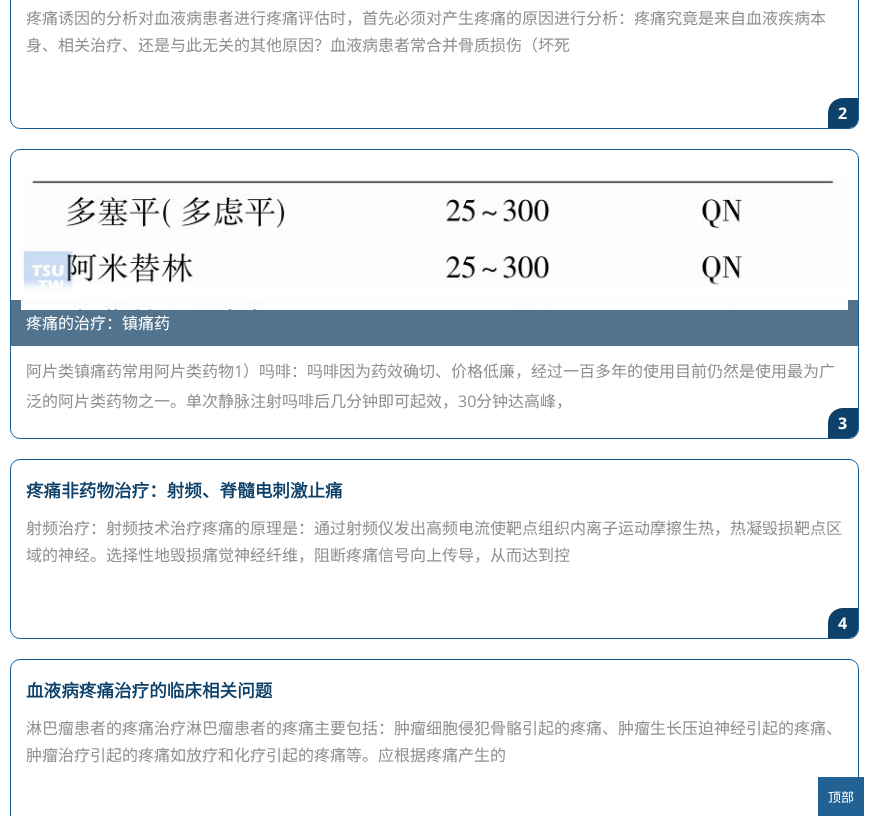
<svg xmlns="http://www.w3.org/2000/svg" width="869" height="816" viewBox="0 0 869 816">
  <rect width="100%" height="100%" fill="#fff"/>
  <rect x="10.5" y="-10.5" width="848" height="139" rx="9.5" fill="none" stroke="#165d95"/>
  <path d="M843 98H858V119C858 124 854 128 849 128H828V113C828 104.5 834.5 98 843 98Z" fill="#0d416a"/>
  <rect x="10.5" y="149.5" width="848" height="289" rx="9.5" fill="none" stroke="#165d95"/>
  <path d="M11 300h847v46H11z" fill="#51738d"/>
  <image x="21" y="178" width="827" height="132" href="img/1.png"/>
  <path d="M843 408H858V429C858 434 854 438 849 438H828V423C828 414.5 834.5 408 843 408Z" fill="#0d416a"/>
  <rect x="10.5" y="459.5" width="848" height="179" rx="9.5" fill="none" stroke="#165d95"/>
  <path d="M843 608H858V629C858 634 854 638 849 638H828V623C828 614.5 834.5 608 843 608Z" fill="#0d416a"/>
  <rect x="10.5" y="659.5" width="848" height="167" rx="9.5" fill="none" stroke="#165d95"/>
  <path d="M818 777h46v39H818z" fill="#226193"/>
  <g font-family="Noto Sans CJK SC" font-size="16" fill="#8f8f8f">
    <text x="26" y="24">疼痛诱因的分析对血液病患者进行疼痛评估时，首先必须对产生疼痛的原因进行分析：疼痛究竟是来自血液疾病本</text>
    <text x="26" y="51">身、相关治疗、还是与此无关的其他原因？血液病患者常合并骨质损伤（坏死</text>
  </g>
  <text x="838" y="119" font-family="Open Sans" font-size="16" font-weight="bold" fill="#f9f9f9">2</text>
  <text x="26" y="329" font-family="Noto Sans CJK SC" font-size="16" fill="#fff">疼痛的治疗：镇痛药</text>
  <text x="26" y="377" font-family="Noto Sans CJK SC" font-size="16" fill="#8f8f8f">阿片类镇痛药常用阿片类药物</text>
  <text x="234" y="377" font-family="Open Sans" font-size="16" fill="#8f8f8f">1</text>
  <g font-family="Noto Sans CJK SC" font-size="16" fill="#8f8f8f">
    <text x="243" y="377">）吗啡：吗啡因为药效确切、价格低廉，经过一百多年的使用目前仍然是使用最为广</text>
    <text x="26" y="407">泛的阿片类药物之一。单次静脉注射吗啡后几分钟即可起效，</text>
  </g>
  <text x="458" y="407" font-family="Open Sans" font-size="16" fill="#8f8f8f">30</text>
  <text x="476" y="407" font-family="Noto Sans CJK SC" font-size="16" fill="#8f8f8f">分钟达高峰，</text>
  <text x="838" y="429" font-family="Open Sans" font-size="16" font-weight="bold" fill="#f9f9f9">3</text>
  <text x="26" y="497" font-family="Noto Sans CJK SC" font-size="17.6" font-weight="bold" fill="#0d416a">疼痛非药物治疗：射频、脊髓电刺激止痛</text>
  <g font-family="Noto Sans CJK SC" font-size="16" fill="#8f8f8f">
    <text x="26" y="534">射频治疗：射频技术治疗疼痛的原理是：通过射频仪发出高频电流使靶点组织内离子运动摩擦生热，热凝毁损靶点区</text>
    <text x="26" y="561">域的神经。选择性地毁损痛觉神经纤维，阻断疼痛信号向上传导，从而达到控</text>
  </g>
  <text x="838" y="629" font-family="Open Sans" font-size="16" font-weight="bold" fill="#f9f9f9">4</text>
  <text x="26" y="697" font-family="Noto Sans CJK SC" font-size="17.6" font-weight="bold" fill="#0d416a">血液病疼痛治疗的临床相关问题</text>
  <g font-family="Noto Sans CJK SC" font-size="16" fill="#8f8f8f">
    <text x="26" y="734">淋巴瘤患者的疼痛治疗淋巴瘤患者的疼痛主要包括：肿瘤细胞侵犯骨骼引起的疼痛、肿瘤生长压迫神经引起的疼痛、</text>
    <text x="26" y="761">肿瘤治疗引起的疼痛如放疗和化疗引起的疼痛等。应根据疼痛产生的</text>
  </g>
  <text x="828" y="802" font-family="Noto Sans CJK SC" font-size="13" fill="#fff">顶部</text>
</svg>
